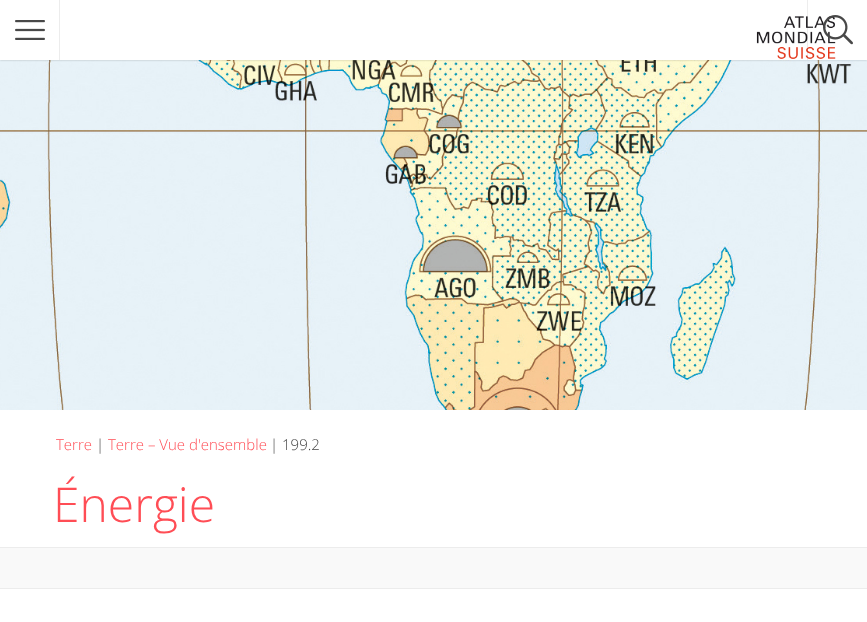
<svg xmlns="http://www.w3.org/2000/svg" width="867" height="622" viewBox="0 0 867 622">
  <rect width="100%" height="100%" fill="#f9f9f9"/>
  <image x="0" y="60" width="867" height="350" href="img/4.png"/>
  <path d="M0 0h867v60H0z" fill="#00000040" filter="blur(1px)"/>
  <path d="M0 0h867v60H0z" fill="#fff"/>
  <path d="M59 0h1v60H59z" fill="#ececec"/>
  <image x="15" y="20" width="30" height="20" href="img/1.png"/>
  <image x="756" y="16" width="80" height="43" href="img/3.png"/>
  <path d="M807 0h1v60H807z" fill="#00000012"/>
  <image x="823" y="15" width="30" height="30" href="img/2.png"/>
  <path d="M0 410h867v137H0z" fill="#fff"/>
  <path d="M0 547h867v1H0z" fill="#ececec"/>
  <path d="M-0.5 588.5h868v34H-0.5z" fill="#fff" stroke="#ececec"/>
  <text x="56" y="450" font-family="Open Sans" font-size="15" font-weight="300" fill="#ff4d55">Terre</text>
  <text x="96" y="450" font-family="Open Sans" font-size="15" font-weight="300" fill="#484848">|</text>
  <text x="108" y="450" font-family="Open Sans" font-size="15" font-weight="300" fill="#ff4d55">Terre – Vue d'ensemble</text>
  <text x="270" y="450" font-family="Open Sans" font-size="15" font-weight="300" fill="#484848">| 199.2</text>
  <text x="53" y="522" font-family="Open Sans" font-size="48" font-weight="300" fill="#ff4d55">Énergie</text>
</svg>
